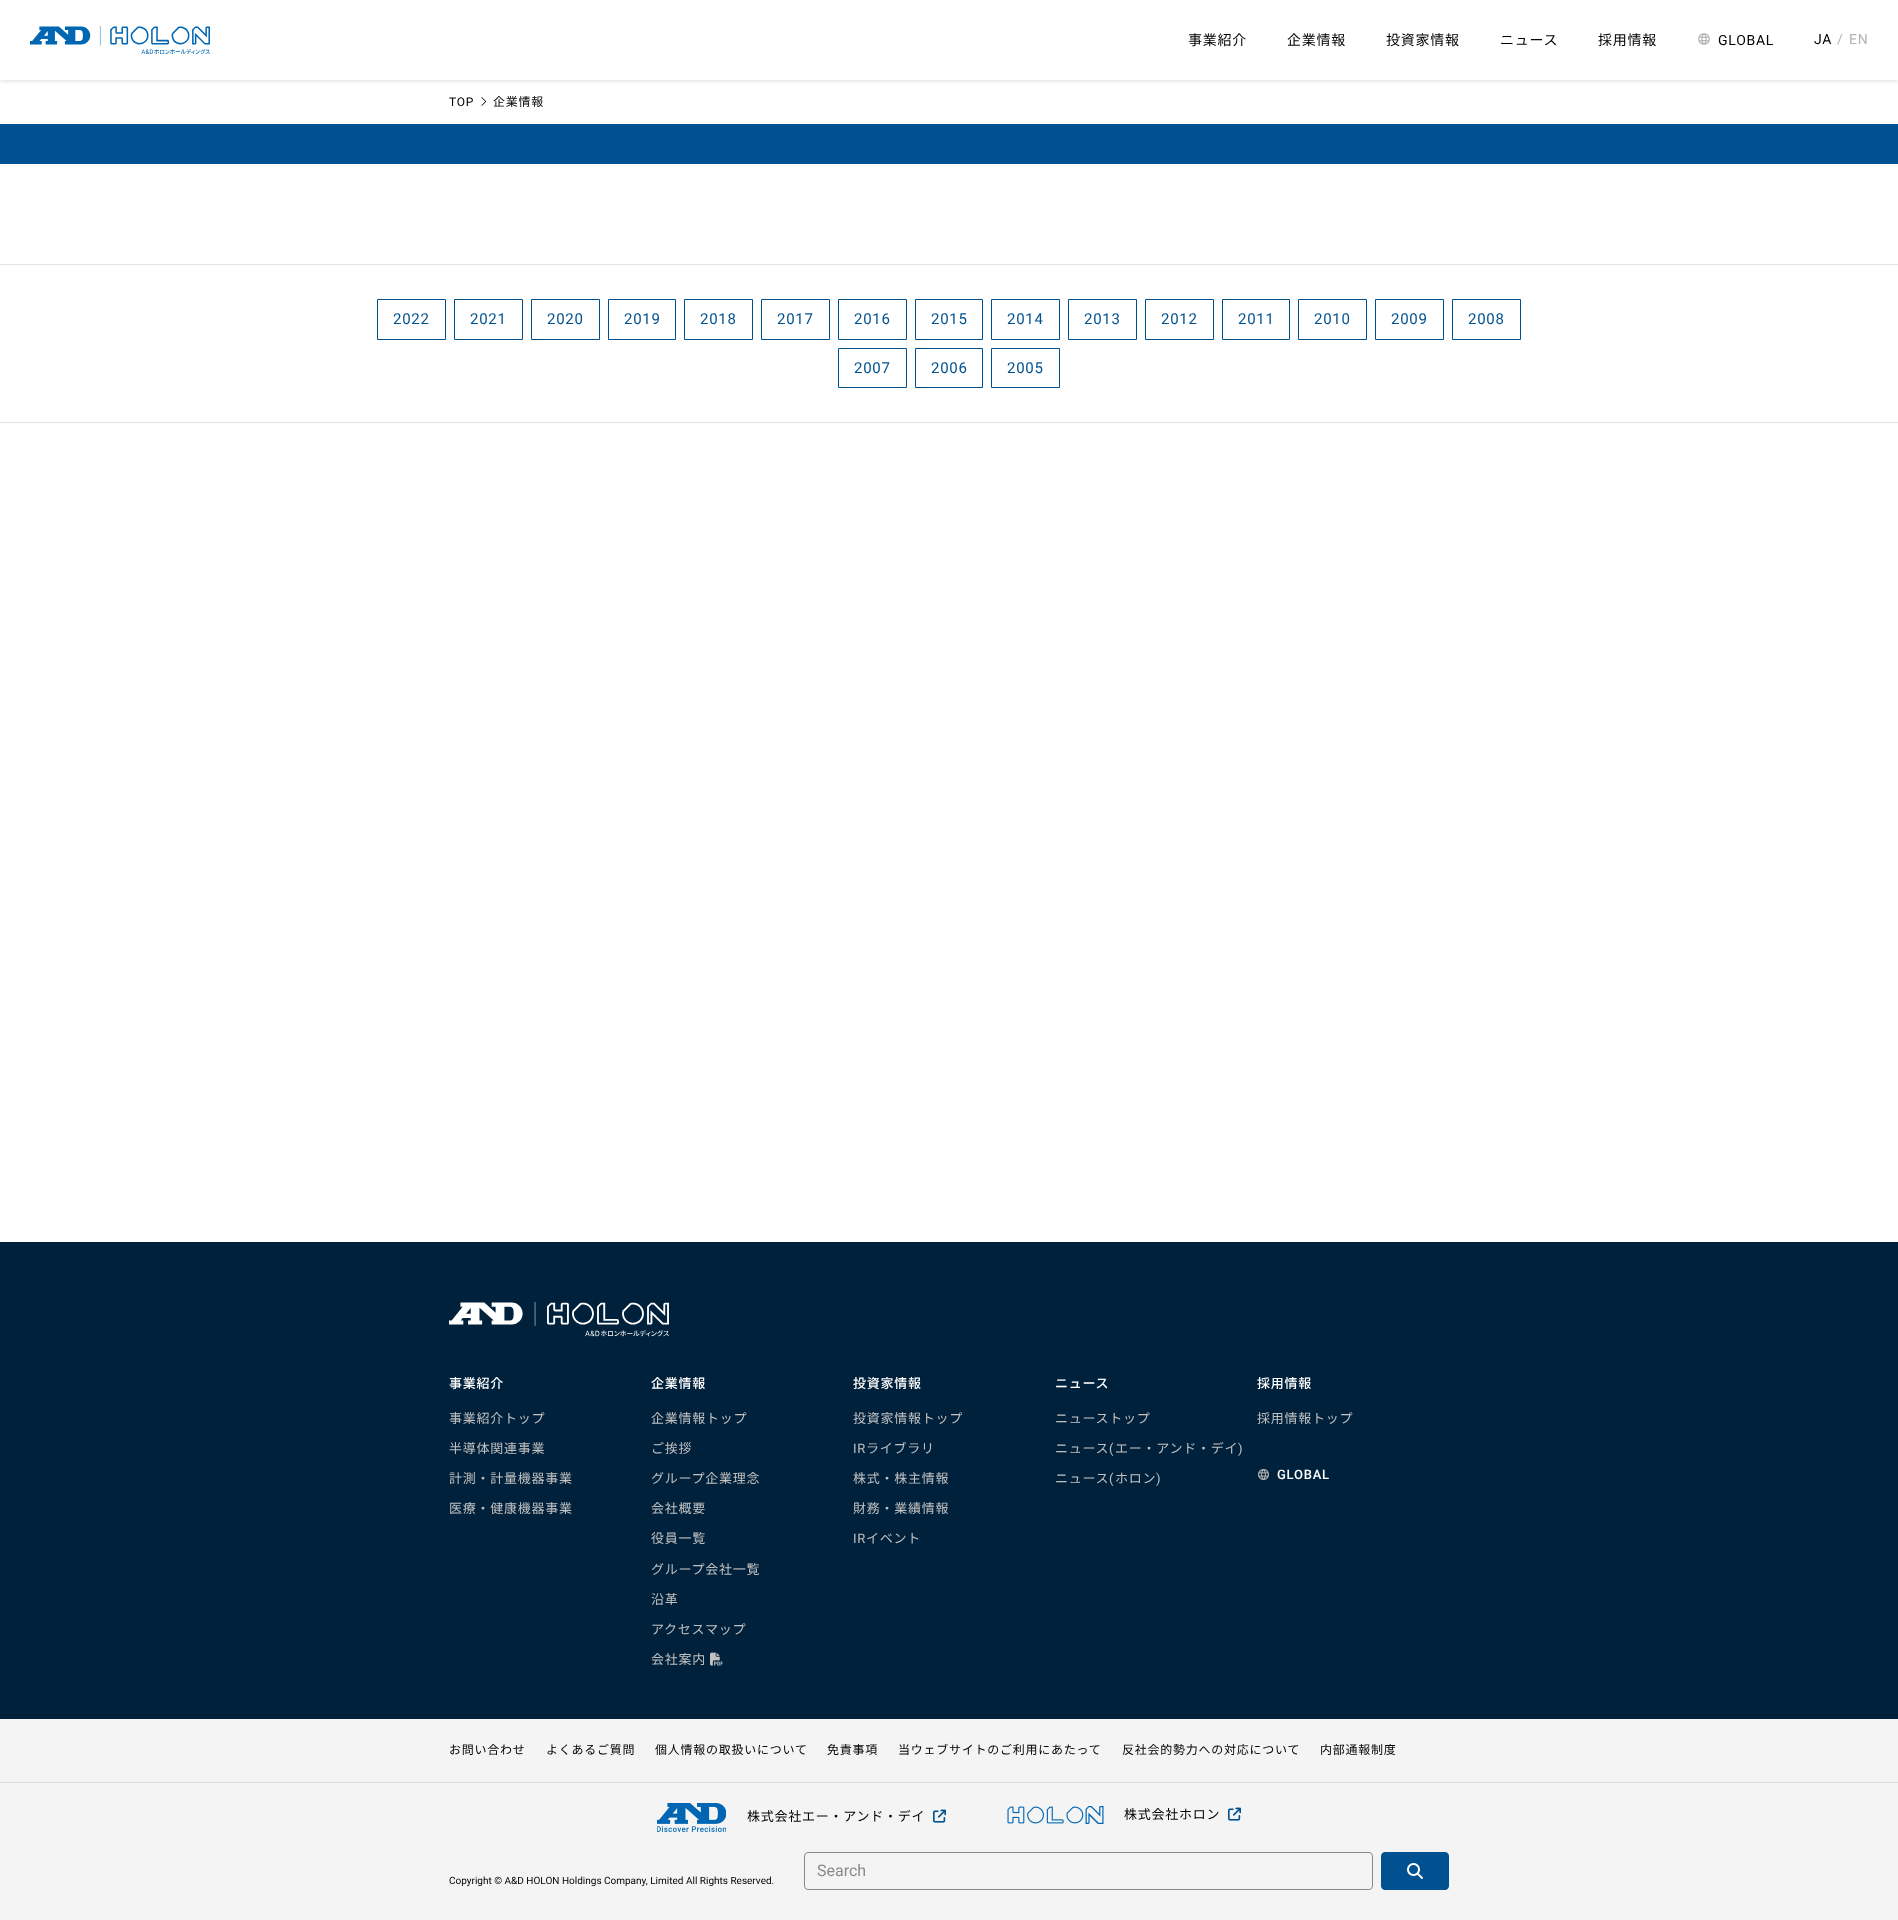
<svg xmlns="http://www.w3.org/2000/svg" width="1898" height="1920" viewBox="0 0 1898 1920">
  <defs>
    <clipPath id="clip1"><path d="M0 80h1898v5H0z"/></clipPath>
  </defs>
  <rect width="100%" height="100%" fill="#fff"/>
  <g clip-path="url(#clip1)">
    <path d="M0 1h1898v80H0z" fill="#ddd" filter="blur(2px)"/>
  </g>
  <image x="30" y="26" width="180" height="28" href="img/1.png"/>
  <image x="1698" y="33" width="12" height="12" href="img/2.png"/>
  <image x="481" y="97" width="6" height="9" href="img/3.png"/>
  <path d="M0 124h1898v40H0z" fill="#00518f"/>
  <path d="M0 264h1898v1H0z" fill="#e2e2e2"/>
  <path d="M0 422h1898v1H0z" fill="#e2e2e2"/>
  <path d="M377.5 299.5h68v40H377.5z" fill="none" stroke="#00518f"/>
  <path d="M454.5 299.5h68v40H454.5z" fill="none" stroke="#00518f"/>
  <path d="M531.5 299.5h68v40H531.5z" fill="none" stroke="#00518f"/>
  <path d="M608.5 299.5h67v40H608.5z" fill="none" stroke="#00518f"/>
  <path d="M684.5 299.5h68v40H684.5z" fill="none" stroke="#00518f"/>
  <path d="M761.5 299.5h68v40H761.5z" fill="none" stroke="#00518f"/>
  <path d="M838.5 299.5h68v40H838.5z" fill="none" stroke="#00518f"/>
  <path d="M915.5 299.5h67v40H915.5z" fill="none" stroke="#00518f"/>
  <path d="M991.5 299.5h68v40H991.5z" fill="none" stroke="#00518f"/>
  <path d="M1068.5 299.5h68v40H1068.5z" fill="none" stroke="#00518f"/>
  <path d="M1145.5 299.5h68v40H1145.5z" fill="none" stroke="#00518f"/>
  <path d="M1222.5 299.5h67v40H1222.5z" fill="none" stroke="#00518f"/>
  <path d="M1298.5 299.5h68v40H1298.5z" fill="none" stroke="#00518f"/>
  <path d="M1375.5 299.5h68v40H1375.5z" fill="none" stroke="#00518f"/>
  <path d="M1452.5 299.5h68v40H1452.5z" fill="none" stroke="#00518f"/>
  <path d="M838.5 348.5h68v39H838.5z" fill="none" stroke="#00518f"/>
  <path d="M915.5 348.5h67v39H915.5z" fill="none" stroke="#00518f"/>
  <path d="M991.5 348.5h68v39H991.5z" fill="none" stroke="#00518f"/>
  <path d="M0 1719h1898v201H0z" fill="#f4f4f4"/>
  <path d="M0 1242h1898v477H0z" fill="#00213c"/>
  <image x="449" y="1302" width="220" height="35" href="img/4.png"/>
  <image x="710" y="1652" width="13" height="14" href="img/5.png"/>
  <image x="1258" y="1469" width="11" height="11" href="img/6.png"/>
  <path d="M0 1782h1898v1H0z" fill="#ddd"/>
  <image x="657" y="1803" width="69" height="29" href="img/7.png"/>
  <image x="933" y="1809" width="13" height="14" href="img/8.png"/>
  <image x="1007" y="1806" width="97" height="18" href="img/9.png"/>
  <image x="1228" y="1807" width="13" height="14" href="img/8.png"/>
  <rect x="804.5" y="1852.5" width="568" height="37" rx="3.5" fill="none" stroke="#8a8a8a"/>
  <rect x="1381.5" y="1852.5" width="67" height="37" rx="3.5" fill="#00518f" stroke="#00518f"/>
  <image x="1407" y="1863" width="16" height="16" href="img/10.png"/>
  <g font-family="Noto Sans JP" font-size="14" letter-spacing="0.75" fill="#000">
    <text x="1188" y="45">事業紹介</text>
    <text x="1287" y="45">企業情報</text>
    <text x="1386" y="45">投資家情報</text>
    <text x="1500" y="45">ニュース</text>
    <text x="1598" y="45">採用情報</text>
  </g>
  <g font-family="Roboto" font-size="14" letter-spacing="0.75" fill="#000">
    <text x="1718" y="45">GLOBAL</text>
    <text x="1814" y="44">JA</text>
  </g>
  <g font-family="Roboto" font-size="14" letter-spacing="0.75" fill="#b2b2b2">
    <text x="1837" y="44">/</text>
    <text x="1849" y="44">EN</text>
  </g>
  <text x="449" y="106" font-family="Roboto" font-size="12" letter-spacing="0.75" fill="#000">TOP</text>
  <text x="493" y="106" font-family="Noto Sans JP" font-size="12" letter-spacing="0.75" fill="#000">企業情報</text>
  <g font-family="Roboto" font-size="15" letter-spacing="0.75" fill="#00518f">
    <text x="393" y="324">2022</text>
    <text x="470" y="324">2021</text>
    <text x="547" y="324">2020</text>
    <text x="624" y="324">2019</text>
    <text x="700" y="324">2018</text>
    <text x="777" y="324">2017</text>
    <text x="854" y="324">2016</text>
    <text x="931" y="324">2015</text>
    <text x="1007" y="324">2014</text>
    <text x="1084" y="324">2013</text>
    <text x="1161" y="324">2012</text>
    <text x="1238" y="324">2011</text>
    <text x="1314" y="324">2010</text>
    <text x="1391" y="324">2009</text>
    <text x="1468" y="324">2008</text>
    <text x="854" y="373">2007</text>
    <text x="931" y="373">2006</text>
    <text x="1007" y="373">2005</text>
  </g>
  <text x="449" y="1388" font-family="Noto Sans JP" font-size="13" font-weight="500" letter-spacing="0.75" fill="#fff">事業紹介</text>
  <g font-family="Noto Sans JP" font-size="13" letter-spacing="0.75" fill="#c1c1c1">
    <text x="449" y="1423">事業紹介トップ</text>
    <text x="449" y="1453">半導体関連事業</text>
    <text x="449" y="1483">計測・計量機器事業</text>
    <text x="449" y="1513">医療・健康機器事業</text>
  </g>
  <text x="651" y="1388" font-family="Noto Sans JP" font-size="13" font-weight="500" letter-spacing="0.75" fill="#fff">企業情報</text>
  <g font-family="Noto Sans JP" font-size="13" letter-spacing="0.75" fill="#c1c1c1">
    <text x="651" y="1423">企業情報トップ</text>
    <text x="651" y="1453">ご挨拶</text>
    <text x="651" y="1483">グループ企業理念</text>
    <text x="651" y="1513">会社概要</text>
    <text x="651" y="1543">役員一覧</text>
    <text x="651" y="1574">グループ会社一覧</text>
    <text x="651" y="1604">沿革</text>
    <text x="651" y="1634">アクセスマップ</text>
    <text x="651" y="1664">会社案内</text>
  </g>
  <text x="853" y="1388" font-family="Noto Sans JP" font-size="13" font-weight="500" letter-spacing="0.75" fill="#fff">投資家情報</text>
  <text x="853" y="1423" font-family="Noto Sans JP" font-size="13" letter-spacing="0.75" fill="#c1c1c1">投資家情報トップ</text>
  <text x="853" y="1453" font-family="Roboto" font-size="13" letter-spacing="0.75" fill="#c1c1c1">IR</text>
  <g font-family="Noto Sans JP" font-size="13" letter-spacing="0.75" fill="#c1c1c1">
    <text x="866" y="1453">ライブラリ</text>
    <text x="853" y="1483">株式・株主情報</text>
    <text x="853" y="1513">財務・業績情報</text>
  </g>
  <text x="853" y="1543" font-family="Roboto" font-size="13" letter-spacing="0.75" fill="#c1c1c1">IR</text>
  <text x="866" y="1543" font-family="Noto Sans JP" font-size="13" letter-spacing="0.75" fill="#c1c1c1">イベント</text>
  <text x="1055" y="1388" font-family="Noto Sans JP" font-size="13" font-weight="500" letter-spacing="0.75" fill="#fff">ニュース</text>
  <g font-family="Noto Sans JP" font-size="13" letter-spacing="0.75" fill="#c1c1c1">
    <text x="1055" y="1423">ニューストップ</text>
    <text x="1055" y="1453">ニュース</text>
  </g>
  <text x="1109" y="1453" font-family="Roboto" font-size="13" letter-spacing="0.75" fill="#c1c1c1">(</text>
  <text x="1115" y="1453" font-family="Noto Sans JP" font-size="13" letter-spacing="0.75" fill="#c1c1c1">エー・アンド・デイ</text>
  <text x="1238" y="1453" font-family="Roboto" font-size="13" letter-spacing="0.75" fill="#c1c1c1">)</text>
  <text x="1055" y="1483" font-family="Noto Sans JP" font-size="13" letter-spacing="0.75" fill="#c1c1c1">ニュース</text>
  <text x="1109" y="1483" font-family="Roboto" font-size="13" letter-spacing="0.75" fill="#c1c1c1">(</text>
  <text x="1115" y="1483" font-family="Noto Sans JP" font-size="13" letter-spacing="0.75" fill="#c1c1c1">ホロン</text>
  <text x="1156" y="1483" font-family="Roboto" font-size="13" letter-spacing="0.75" fill="#c1c1c1">)</text>
  <text x="1257" y="1388" font-family="Noto Sans JP" font-size="13" font-weight="500" letter-spacing="0.75" fill="#fff">採用情報</text>
  <text x="1257" y="1423" font-family="Noto Sans JP" font-size="13" letter-spacing="0.75" fill="#c1c1c1">採用情報トップ</text>
  <text x="1277" y="1479" font-family="Roboto" font-size="13" font-weight="500" letter-spacing="0.75" fill="#fff">GLOBAL</text>
  <g font-family="Noto Sans JP" font-size="12" letter-spacing="0.75" fill="#000">
    <text x="449" y="1754">お問い合わせ</text>
    <text x="546" y="1754">よくあるご質問</text>
    <text x="655" y="1754">個人情報の取扱いについて</text>
    <text x="827" y="1754">免責事項</text>
    <text x="898" y="1754">当ウェブサイトのご利用にあたって</text>
    <text x="1122" y="1754">反社会的勢力への対応について</text>
    <text x="1320" y="1754">内部通報制度</text>
  </g>
  <g font-family="Noto Sans JP" font-size="13" letter-spacing="0.75" fill="#000">
    <text x="747" y="1821">株式会社エー・アンド・デイ</text>
    <text x="1124" y="1819">株式会社ホロン</text>
  </g>
  <text x="817" y="1876" font-family="Roboto" font-size="16" fill="#8a8a8a">Search</text>
  <text x="449" y="1884" font-family="Roboto" font-size="10" fill="#000">Copyright © A&amp;D HOLON Holdings Company, Limited All Rights Reserved.</text>
</svg>
